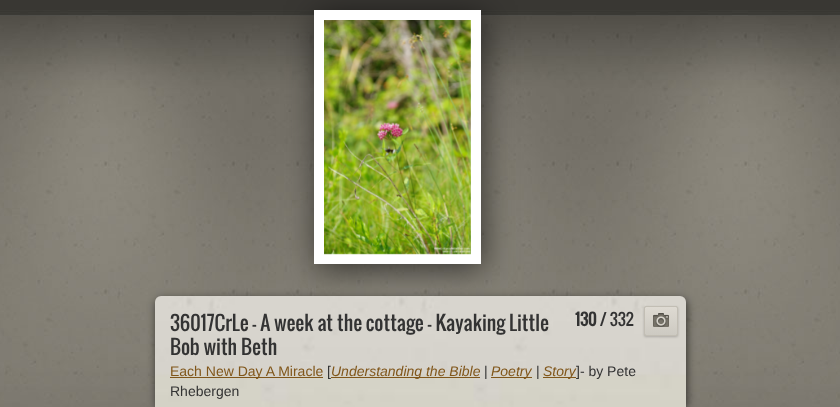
<svg xmlns="http://www.w3.org/2000/svg" width="840" height="407" viewBox="0 0 840 407">
  <defs>
    <linearGradient id="g1" gradientUnits="userSpaceOnUse" x1="661" y1="307" x2="661" y2="335"><stop offset="0" stop-color="#dedad2"/><stop offset="1" stop-color="#cdcac2"/></linearGradient>
  </defs>
  <rect width="100%" height="100%" fill="#393733"/>
  <image x="0" y="10" width="840" height="397" href="img/1.png"/>
  <path d="M317 16h167v254H317z" fill="#00000099" filter="blur(16px)"/>
  <path d="M314 10h167v254H314z" fill="#fff"/>
  <image x="324" y="20" width="147" height="235" href="img/2.png"/>
  <rect x="156" y="299" width="531" height="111" rx="6" fill="#00000099" filter="blur(4px)"/>
  <image x="155" y="296" width="531" height="111" href="img/3.png"/>
  <rect x="644" y="307" width="34" height="30" rx="2" fill="#00000033" filter="blur(1px)"/>
  <rect x="645" y="307" width="32" height="28" rx="1" fill="url(#g1)"/>
  <rect x="644.5" y="306.5" width="33" height="29" rx="1.5" fill="none" stroke="#c2beb4"/>
  <image x="653" y="313" width="16" height="14" href="img/4.png"/>
  <path d="M170 377h153v1H170z" fill="#80561a"/>
  <path d="M331 377h149v1H331z" fill="#80561a"/>
  <path d="M491 377h41v1H491z" fill="#80561a"/>
  <path d="M543 377h33v1H543z" fill="#80561a"/>
  <text x="575" y="326" font-family="Oswald" font-size="16" font-weight="bold" fill="#333">130</text>
  <text x="600" y="326" font-family="Oswald" font-size="16" fill="#333">/ 332</text>
  <g font-family="Oswald" font-size="19.6" fill="#333">
    <text x="170" y="331">36017CrLe - A week at the cottage - Kayaking Little</text>
    <text x="170" y="355">Bob with Beth</text>
  </g>
  <text x="170" y="376" font-family="Liberation Sans" font-size="14" fill="#80561a">Each New Day A Miracle</text>
  <text x="327" y="376" font-family="Liberation Sans" font-size="14" fill="#333">[</text>
  <text x="331" y="376" font-family="Liberation Sans" font-size="14" font-style="italic" fill="#80561a">Understanding the Bible</text>
  <text x="484" y="376" font-family="Liberation Sans" font-size="14" fill="#333">|</text>
  <text x="491" y="376" font-family="Liberation Sans" font-size="14" font-style="italic" fill="#80561a">Poetry</text>
  <text x="536" y="376" font-family="Liberation Sans" font-size="14" fill="#333">|</text>
  <text x="543" y="376" font-family="Liberation Sans" font-size="14" font-style="italic" fill="#80561a">Story</text>
  <g font-family="Liberation Sans" font-size="14" fill="#333">
    <text x="576" y="376">]- by Pete</text>
    <text x="170" y="396">Rhebergen</text>
  </g>
</svg>
